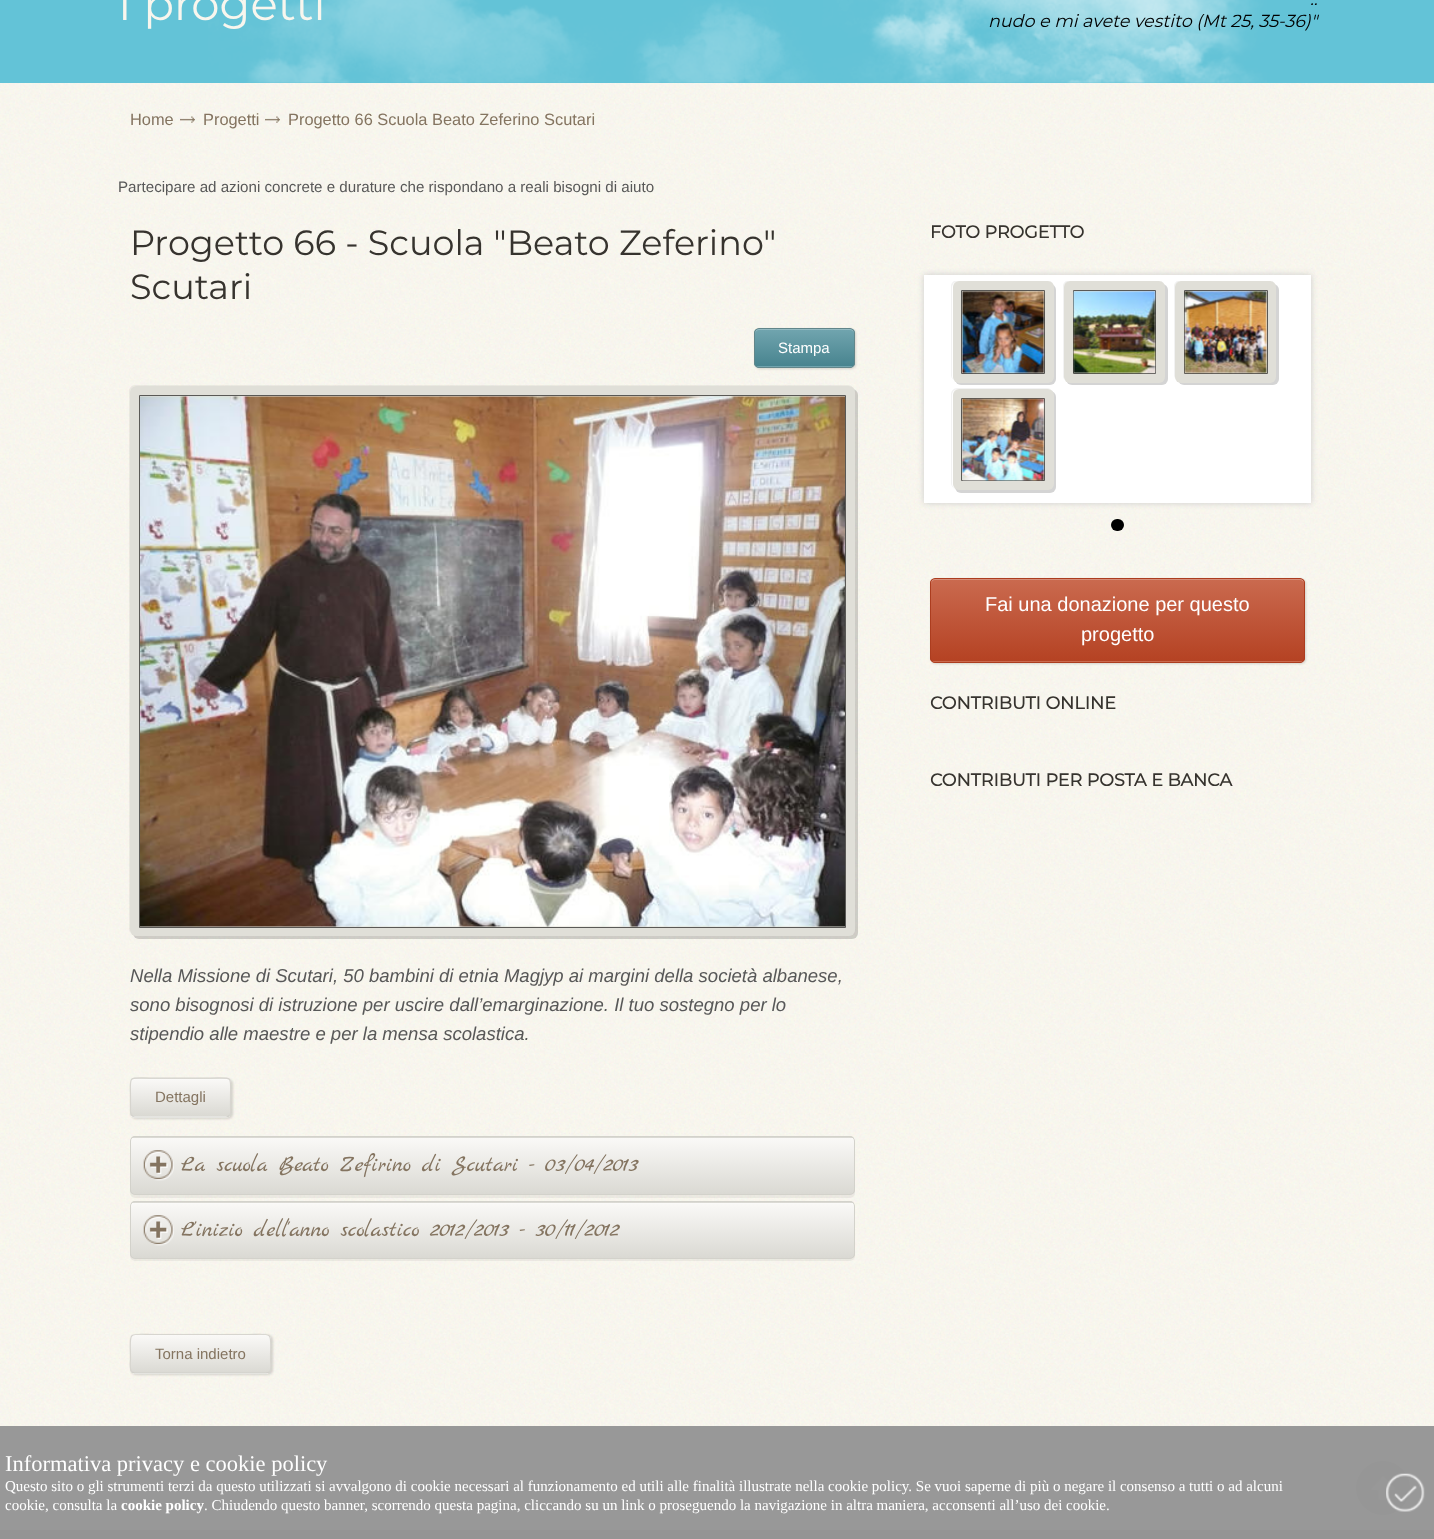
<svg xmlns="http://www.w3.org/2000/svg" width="1434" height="1539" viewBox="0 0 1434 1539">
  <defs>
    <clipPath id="clip1"><rect x="754" y="328" width="101" height="40" rx="5"/></clipPath>
    <linearGradient id="g1" gradientUnits="userSpaceOnUse" x1="804" y1="329" x2="804" y2="366"><stop offset="0" stop-color="#71a5af"/><stop offset="1" stop-color="#48848f"/></linearGradient>
    <linearGradient id="g2" gradientUnits="userSpaceOnUse" x1="804" y1="366" x2="804" y2="404"><stop offset="0" stop-color="#71a5af"/><stop offset="1" stop-color="#48848f"/></linearGradient>
    <clipPath id="clip2"><rect x="130" y="1078" width="101" height="40" rx="5"/></clipPath>
    <linearGradient id="g3" gradientUnits="userSpaceOnUse" x1="181" y1="1041" x2="181" y2="1079"><stop offset="0" stop-color="#faf9f7"/><stop offset="1" stop-color="#dad9d3"/></linearGradient>
    <linearGradient id="g4" gradientUnits="userSpaceOnUse" x1="181" y1="1079" x2="181" y2="1116"><stop offset="0" stop-color="#faf9f7"/><stop offset="1" stop-color="#dad9d3"/></linearGradient>
    <linearGradient id="g5" gradientUnits="userSpaceOnUse" x1="181" y1="1116" x2="181" y2="1154"><stop offset="0" stop-color="#faf9f7"/><stop offset="1" stop-color="#dad9d3"/></linearGradient>
    <clipPath id="clip3"><rect x="130" y="1136" width="725" height="59" rx="5"/></clipPath>
    <linearGradient id="g6" gradientUnits="userSpaceOnUse" x1="493" y1="1081" x2="493" y2="1138"><stop offset="0" stop-color="#faf9f7"/><stop offset="1" stop-color="#dad9d3"/></linearGradient>
    <linearGradient id="g7" gradientUnits="userSpaceOnUse" x1="493" y1="1138" x2="493" y2="1194"><stop offset="0" stop-color="#faf9f7"/><stop offset="1" stop-color="#dad9d3"/></linearGradient>
    <clipPath id="clip4"><rect x="130" y="1201" width="725" height="58" rx="5"/></clipPath>
    <linearGradient id="g8" gradientUnits="userSpaceOnUse" x1="493" y1="1148" x2="493" y2="1203"><stop offset="0" stop-color="#faf9f7"/><stop offset="1" stop-color="#dad9d3"/></linearGradient>
    <linearGradient id="g9" gradientUnits="userSpaceOnUse" x1="493" y1="1203" x2="493" y2="1258"><stop offset="0" stop-color="#faf9f7"/><stop offset="1" stop-color="#dad9d3"/></linearGradient>
    <clipPath id="clip5"><rect x="130" y="1334" width="141" height="40" rx="5"/></clipPath>
    <linearGradient id="g10" gradientUnits="userSpaceOnUse" x1="201" y1="1335" x2="201" y2="1373"><stop offset="0" stop-color="#faf9f7"/><stop offset="1" stop-color="#dad9d3"/></linearGradient>
    <linearGradient id="g11" gradientUnits="userSpaceOnUse" x1="201" y1="1373" x2="201" y2="1410"><stop offset="0" stop-color="#faf9f7"/><stop offset="1" stop-color="#dad9d3"/></linearGradient>
    <clipPath id="clip6"><path d="M930 281h375v215H930z"/></clipPath>
    <clipPath id="clip7"><rect x="930" y="578" width="375" height="85" rx="5"/></clipPath>
    <linearGradient id="g12" gradientUnits="userSpaceOnUse" x1="1118" y1="579" x2="1118" y2="661"><stop offset="0" stop-color="#ca6a4f"/><stop offset="1" stop-color="#b54223"/></linearGradient>
    <linearGradient id="g13" gradientUnits="userSpaceOnUse" x1="1118" y1="661" x2="1118" y2="744"><stop offset="0" stop-color="#ca6a4f"/><stop offset="1" stop-color="#b54223"/></linearGradient>
  </defs>
  <rect width="100%" height="100%" fill="#fff"/>
  <image x="0" y="83" width="1434" height="1447" href="img/1.png"/>
  <path d="M0 0h1434v83H0z" fill="#63c3d7"/>
  <image x="208" y="0" width="1059" height="83" href="img/2.png"/>
  <image x="180" y="116" width="15" height="7" href="img/3.png"/>
  <image x="265" y="116" width="15" height="7" href="img/4.png"/>
  <rect x="755" y="329" width="101" height="40" rx="5" fill="#00000024" filter="blur(1px)"/>
  <g clip-path="url(#clip1)">
    <path d="M754 329h101v37H754z" fill="url(#g1)"/>
    <path d="M754 366h101v2H754z" fill="url(#g2)"/>
  </g>
  <path d="M759 330H850C852 330 854 332 854 334C854 325 839 329 835 329H774C770 329 755 325 755 334C755 332 757 330 759 330Z" fill="#ffffff40"/>
  <rect x="754.5" y="328.5" width="100" height="39" rx="4.5" fill="none" stroke="#62868a"/>
  <path d="M135 385C132 385 129 388 129 391V929C129 931 130 932 131 934C130 933 130 931 130 930V392C130 389 133 386 136 386H849C851 386 852 387 853 388C852 386 850 385 848 385Z" fill="#0000000d"/>
  <rect x="133" y="389" width="725" height="550" rx="6" fill="#0000002b" filter="blur(0.5px)"/>
  <rect x="130" y="386" width="725" height="550" rx="6" fill="#e0dfd8"/>
  <path d="M139.5 395.5h706v532H139.5z" fill="none" stroke="#5a5956"/>
  <image x="140" y="396" width="705" height="531" href="img/5.png"/>
  <rect x="131" y="1079" width="102" height="40" rx="5" fill="#00000024" filter="blur(1px)"/>
  <g clip-path="url(#clip2)">
    <path d="M130 1078h101v1H130z" fill="url(#g3)"/>
    <path d="M130 1079h101v37H130z" fill="url(#g4)"/>
    <path d="M130 1116h101v2H130z" fill="url(#g5)"/>
  </g>
  <path d="M135 1080H226C228 1080 230 1082 230 1084C230 1075 215 1079 211 1079H150C146 1079 131 1075 131 1084C131 1082 133 1080 135 1080Z" fill="#ffffff40"/>
  <path d="M229.5 1115.5C228.5 1116.5 227.5 1117 226 1117H135C134 1117 132.5 1116.5 132 1115.5" fill="none" stroke="#d0cfc9" stroke-width="1.2"/>
  <path d="M132 1115.5C130 1113.5 130.5 1110 130.5 1107.5V1097.5C130.5 1075 127 1078 150 1078H211C234 1078 230.5 1075 230.5 1097.5V1107.5C230.5 1110 231.5 1113.5 229.5 1115.5" fill="none" stroke="#d7d5cf" stroke-width="1.2"/>
  <rect x="130" y="1139" width="725" height="59" rx="5" fill="#0000000d" filter="blur(0.5px)"/>
  <g clip-path="url(#clip3)">
    <path d="M130 1136h725v2H130z" fill="url(#g6)"/>
    <path d="M130 1138h725v56H130z" fill="url(#g7)"/>
  </g>
  <rect x="130.5" y="1136.5" width="724" height="58" rx="4.5" fill="none" stroke="#d3d2cb"/>
  <image x="143" y="1150" width="31" height="31" href="img/6.png"/>
  <rect x="130" y="1204" width="725" height="57" rx="5" fill="#0000000d" filter="blur(0.5px)"/>
  <g clip-path="url(#clip4)">
    <path d="M130 1201h725v2H130z" fill="url(#g8)"/>
    <path d="M130 1203h725v55H130z" fill="url(#g9)"/>
  </g>
  <path d="M135 1204H850C852 1204 854 1205 854 1208C854 1205 853 1203 850 1203H135L132 1204L131 1205V1208C131 1205 133 1204 135 1204Z" fill="#fbfaf9"/>
  <rect x="130.5" y="1201.5" width="724" height="57" rx="4.5" fill="none" stroke="#d3d2cb"/>
  <image x="143" y="1215" width="31" height="31" href="img/7.png"/>
  <rect x="131" y="1335" width="142" height="40" rx="5" fill="#00000024" filter="blur(1px)"/>
  <g clip-path="url(#clip5)">
    <path d="M130 1335h141v38H130z" fill="url(#g10)"/>
    <path d="M130 1373h141v1H130z" fill="url(#g11)"/>
  </g>
  <path d="M269.5 1372L266 1373H134.5L132 1372" fill="none" stroke="#d0cfc9" stroke-width="1.2"/>
  <path d="M132 1372C129 1369 130.5 1361.5 130.5 1359C130.5 1329.5 125.5 1334.5 157 1334.5H244.5C275.5 1334.5 270.5 1329.5 270.5 1359C270.5 1361.5 272 1369 269.5 1372" fill="none" stroke="#d7d5cf" stroke-width="1.2"/>
  <path d="M924 275h387v228H924z" fill="#ccc" filter="blur(3px)"/>
  <path d="M924 275h387v228H924z" fill="#fff"/>
  <g clip-path="url(#clip6)">
    <path d="M957 280C954 280 951 283 951 286V375C951 377 952 379 954 380C953 379 952 378 952 376V288C952 284 955 281 959 281H1048C1050 281 1052 282 1053 284C1052 282 1050 280 1047 280Z" fill="#f2f2f2"/>
  </g>
  <rect x="955" y="284" width="101" height="101" rx="6" fill="#0000002b" filter="blur(0.5px)"/>
  <rect x="953" y="281" width="101" height="102" rx="6" fill="#e0dfd8"/>
  <path d="M961.5 290.5h83v83H961.5z" fill="none" stroke="#5a5956"/>
  <image x="962" y="291" width="83" height="83" href="img/8.png"/>
  <g clip-path="url(#clip6)">
    <path d="M1069 280C1066 280 1063 283 1063 286V375C1063 376 1063 378 1064 379V376V288C1064 284 1067 281 1070 281H1159C1161 281 1162 282 1163 283C1162 281 1160 280 1158 280Z" fill="#f2f2f2"/>
  </g>
  <rect x="1066" y="284" width="102" height="101" rx="6" fill="#0000002b" filter="blur(0.5px)"/>
  <rect x="1064" y="281" width="101" height="102" rx="6" fill="#e0dfd8"/>
  <path d="M1073.5 290.5h82v83H1073.5z" fill="none" stroke="#5a5956"/>
  <image x="1073" y="291" width="83" height="83" href="img/9.png"/>
  <g clip-path="url(#clip6)">
    <path d="M1180 280C1177 280 1174 283 1174 286V375C1174 377 1175 378 1176 379L1175 376V288C1175 284 1178 281 1181 281H1270C1272 281 1273 282 1274 283C1273 281 1271 280 1269 280Z" fill="#f2f2f2"/>
  </g>
  <rect x="1178" y="284" width="101" height="101" rx="6" fill="#0000002b" filter="blur(0.5px)"/>
  <rect x="1175" y="281" width="101" height="102" rx="6" fill="#e0dfd8"/>
  <path d="M1184.5 290.5h83v83H1184.5z" fill="none" stroke="#5a5956"/>
  <image x="1184" y="291" width="83" height="83" href="img/10.png"/>
  <path d="M957 388C954 388 951 391 951 394V483C951 486 953 488 955 489C953 487 952 486 952 484V395C952 392 955 389 959 389H1048C1049 389 1051 389 1052 391C1051 389 1049 388 1047 388Z" fill="#f2f2f2"/>
  <rect x="955" y="391" width="101" height="102" rx="6" fill="#0000002b" filter="blur(0.5px)"/>
  <rect x="953" y="389" width="101" height="101" rx="6" fill="#e0dfd8"/>
  <path d="M961.5 398.5h83v82H961.5z" fill="none" stroke="#5a5956"/>
  <image x="962" y="398" width="83" height="83" href="img/11.png"/>
  <rect x="1111" y="519" width="13" height="12" rx="6" fill="#000"/>
  <rect x="931" y="579" width="375" height="85" rx="5" fill="#00000024" filter="blur(1px)"/>
  <g clip-path="url(#clip7)">
    <path d="M930 579h375v82H930z" fill="url(#g12)"/>
    <path d="M930 661h375v2H930z" fill="url(#g13)"/>
  </g>
  <path d="M935 580H1300C1302 580 1304 582 1304 584C1304 581 1303 579 1300 579H935C932 579 931 581 931 584C931 582 933 580 935 580Z" fill="#d78f7b"/>
  <rect x="930.5" y="578.5" width="374" height="84" rx="4.5" fill="none" stroke="#ac3d1f"/>
  <circle cx="1383" cy="1488" r="27" fill="#918f89"/>
  <image x="1371" y="1476" width="25" height="25" href="img/13.png"/>
  <path d="M0 1530h1434v9H0z" fill="#353230"/>
  <path d="M0 1426h1434v113H0z" fill="#969696fa"/>
  <image x="1386" y="1473" width="39" height="39" href="img/12.png"/>
  <text x="118" y="20" font-family="Montserrat" font-size="45" font-weight="100" fill="#f8f6ee">I progetti</text>
  <g font-family="Montserrat" font-size="17.5" font-weight="100" font-style="italic" fill="#000">
    <text x="1310" y="5">..</text>
    <text x="988" y="27">nudo e mi avete vestito (Mt 25, 35-36)"</text>
  </g>
  <g font-family="Liberation Sans" font-size="16.4" fill="#847460">
    <text x="130" y="125">Home</text>
    <text x="203" y="125">Progetti</text>
    <text x="288" y="125">Progetto 66 Scuola Beato Zeferino Scutari</text>
  </g>
  <text x="118" y="192" font-family="Liberation Sans" font-size="15.15" fill="#585858">Partecipare ad azioni concrete e durature che rispondano a reali bisogni di aiuto</text>
  <g font-family="Montserrat" font-size="35" font-weight="100" fill="#36332e">
    <text x="130" y="255">Progetto 66 - Scuola "Beato Zeferino"</text>
    <text x="130" y="299">Scutari</text>
  </g>
  <text x="778" y="353" font-family="Liberation Sans" font-size="15" fill="#fff">Stampa</text>
  <g font-family="Liberation Sans" font-size="18.55" font-style="italic" fill="#585858">
    <text x="130" y="982">Nella Missione di Scutari, 50 bambini di etnia Magjyp ai margini della società albanese,</text>
    <text x="130" y="1011">sono bisognosi di istruzione per uscire dall’emarginazione. Il tuo sostegno per lo</text>
    <text x="130" y="1040">stipendio alle maestre e per la mensa scolastica.</text>
  </g>
  <text x="155" y="1102" font-family="Liberation Sans" font-size="15" fill="#847460">Dettagli</text>
  <g font-family="Marck Script" font-size="23.2" fill="#847460">
    <text x="181" y="1171">La scuola Beato Zefirino di Scutari - 03/04/2013</text>
    <text x="181" y="1236">L'inizio dell'anno scolastico 2012/2013 - 30/11/2012</text>
  </g>
  <text x="155" y="1359" font-family="Liberation Sans" font-size="15" fill="#847460">Torna indietro</text>
  <text x="930" y="238" font-family="Montserrat" font-size="17.5" font-weight="bold" fill="#36332e">FOTO PROGETTO</text>
  <g font-family="Liberation Sans" font-size="20" fill="#fff">
    <text x="985" y="611">Fai una donazione per questo</text>
    <text x="1081" y="641">progetto</text>
  </g>
  <g font-family="Montserrat" font-size="17.5" font-weight="bold" fill="#36332e">
    <text x="930" y="709">CONTRIBUTI ONLINE</text>
    <text x="930" y="786">CONTRIBUTI PER POSTA E BANCA</text>
  </g>
  <text x="5" y="1471" font-family="Liberation Serif" font-size="22.5" fill="#fff">Informativa privacy e cookie policy</text>
  <g font-family="Liberation Serif" font-size="15" fill="#fff">
    <text x="5" y="1491">Questo sito o gli strumenti terzi da questo utilizzati si avvalgono di cookie necessari al funzionamento ed utili alle finalità illustrate nella cookie policy. Se vuoi saperne di più o negare il consenso a tutti o ad alcuni</text>
    <text x="5" y="1510">cookie, consulta la</text>
  </g>
  <text x="121" y="1510" font-family="Liberation Serif" font-size="15" font-weight="bold" fill="#fff">cookie policy</text>
  <text x="204" y="1510" font-family="Liberation Serif" font-size="15" fill="#fff">. Chiudendo questo banner, scorrendo questa pagina, cliccando su un link o proseguendo la navigazione in altra maniera, acconsenti all’uso dei cookie.</text>
</svg>
